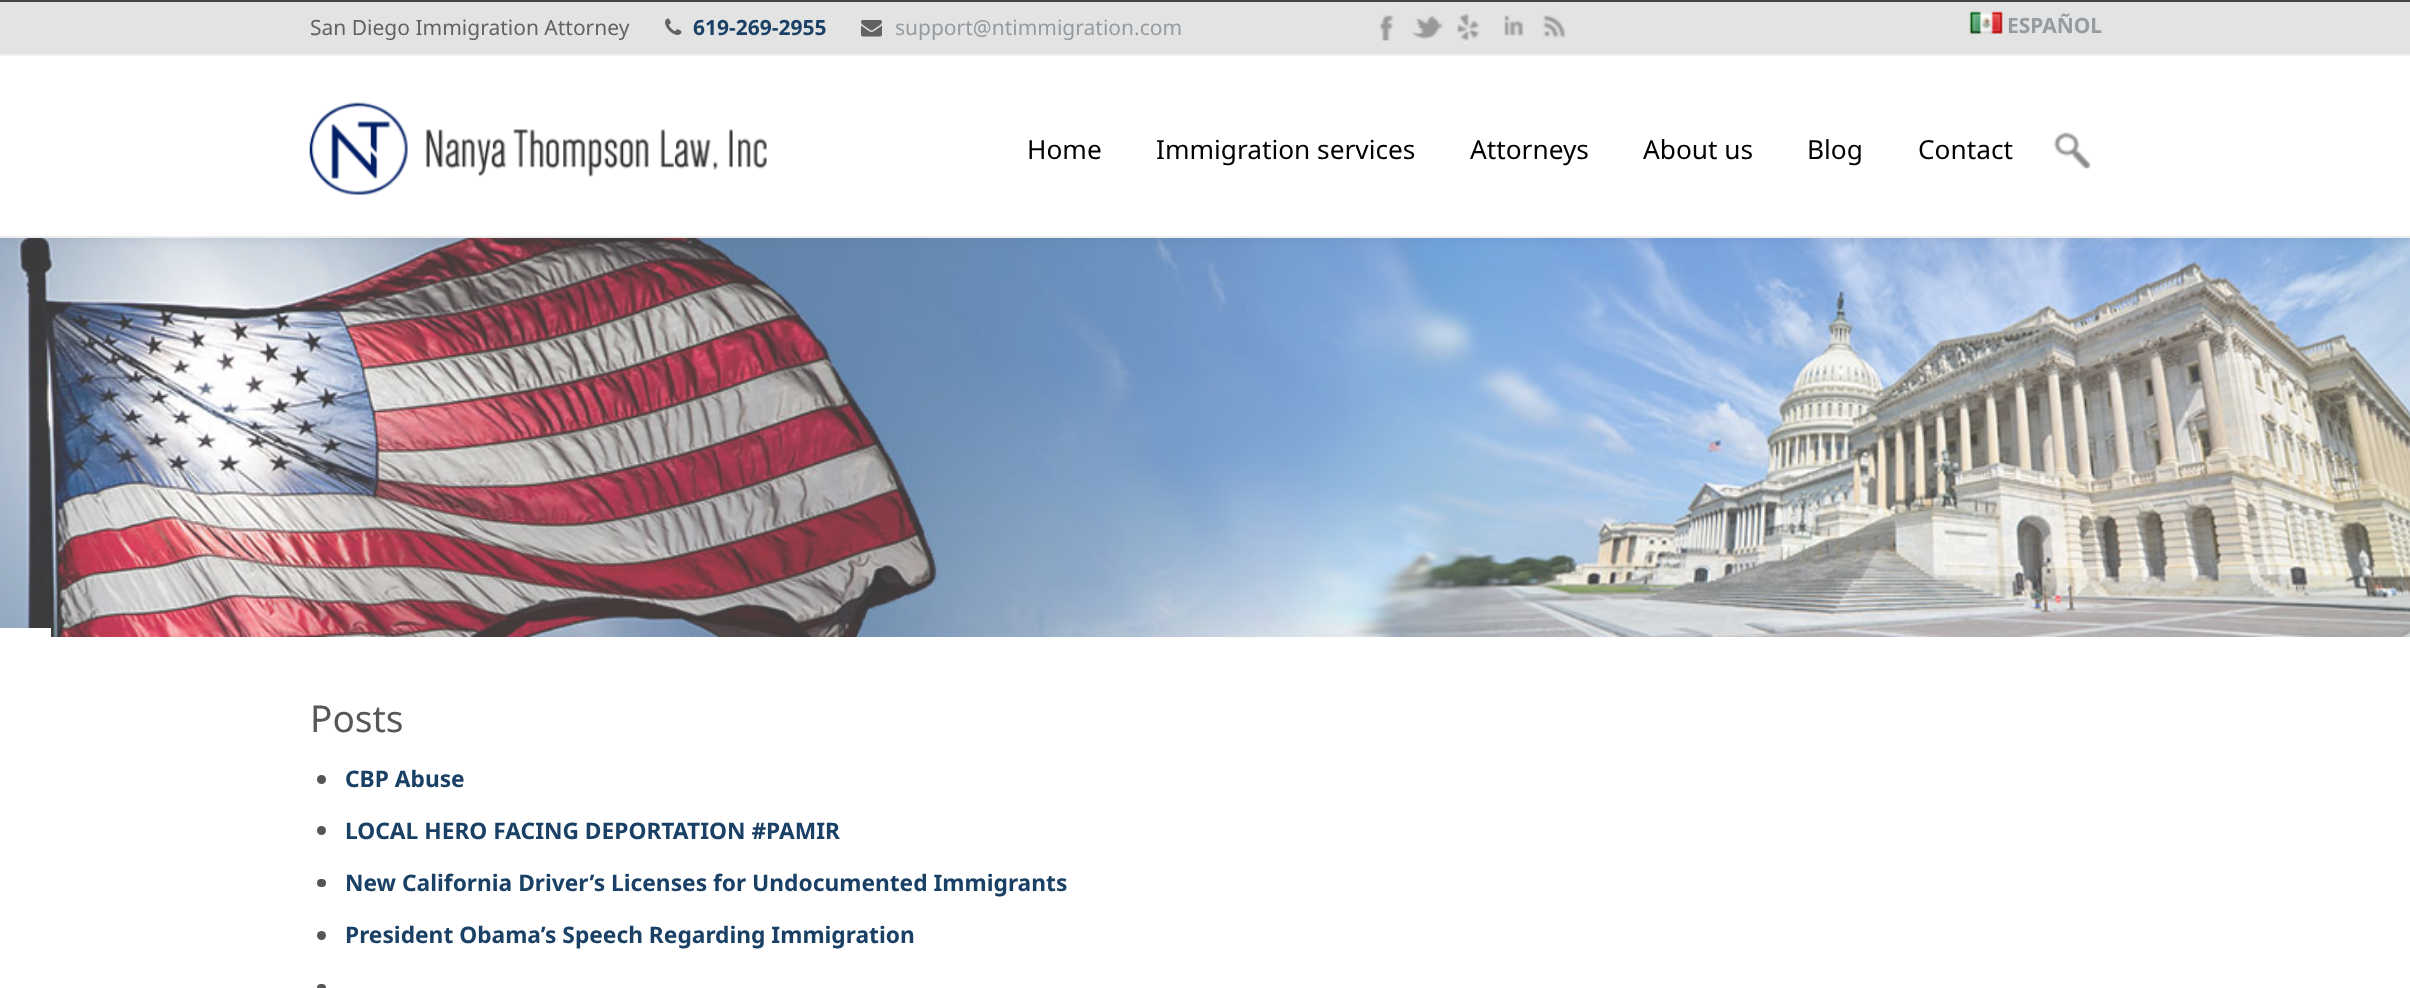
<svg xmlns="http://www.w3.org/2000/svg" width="2410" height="988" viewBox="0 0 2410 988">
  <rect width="100%" height="100%" fill="#fff"/>
  <image x="0" y="238" width="2410" height="399" href="img/11.png"/>
  <path d="M0 2h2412v238H0z" fill="#44444412" filter="blur(5px)"/>
  <path d="M0 56h2410v180H0z" fill="#fff"/>
  <path d="M0 0h2410v2H0z" fill="#444"/>
  <path d="M0 236h2410v2H0z" fill="#ededed"/>
  <path d="M0 2h2410v52H0z" fill="#e3e3e3"/>
  <path d="M0 54h2410v2H0z" fill="#f2f2f2"/>
  <image x="665" y="18" width="17" height="17" href="img/1.png"/>
  <image x="861" y="20" width="21" height="17" href="img/2.png"/>
  <image x="1379" y="15" width="15" height="26" href="img/3.png"/>
  <image x="1412" y="15" width="31" height="24" href="img/4.png"/>
  <image x="1457" y="14" width="23" height="30" href="img/5.png"/>
  <image x="1504" y="15" width="20" height="21" href="img/6.png"/>
  <image x="1543" y="15" width="23" height="23" href="img/7.png"/>
  <image x="1969" y="11" width="34" height="23" href="img/8.png"/>
  <image x="309" y="102" width="458" height="93" href="img/9.png"/>
  <image x="2053" y="132" width="38" height="37" href="img/10.png"/>
  <path d="M0 628h51v9H0z" fill="#fff"/>
  <circle cx="321.5" cy="779.5" r="4.5" fill="#555"/>
  <circle cx="321.5" cy="830.5" r="4.5" fill="#555"/>
  <rect x="317" y="879" width="9" height="8" rx="4" fill="#555"/>
  <circle cx="321.5" cy="935.5" r="4.5" fill="#555"/>
  <rect x="317" y="984" width="9" height="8" rx="4" fill="#555"/>
  <text x="310" y="35" font-family="Noto Sans" font-size="21" fill="#626262">San Diego Immigration Attorney</text>
  <text x="693" y="35" font-family="Noto Sans" font-size="21" font-weight="bold" fill="#1a4165">619-269-2955</text>
  <text x="895" y="35" font-family="Noto Sans" font-size="21" fill="#949ba1">support@ntimmigration.com</text>
  <text x="2007" y="33" font-family="Noto Sans" font-size="21" font-weight="bold" fill="#949ba1">ESPAÑOL</text>
  <g font-family="Noto Sans" font-size="26.25" fill="#000">
    <text x="1027" y="159">Home</text>
    <text x="1156" y="159">Immigration services</text>
    <text x="1470" y="159">Attorneys</text>
    <text x="1643" y="159">About us</text>
    <text x="1807" y="159">Blog</text>
    <text x="1918" y="159">Contact</text>
  </g>
  <text x="310" y="732" font-family="Noto Sans" font-size="37" fill="#575757">Posts</text>
  <g font-family="Noto Sans" font-size="22.75" font-weight="bold" fill="#1a4165">
    <text x="345" y="787">CBP Abuse</text>
    <text x="345" y="839">LOCAL HERO FACING DEPORTATION #PAMIR</text>
    <text x="345" y="891">New California Driver’s Licenses for Undocumented Immigrants</text>
    <text x="345" y="943">President Obama’s Speech Regarding Immigration</text>
  </g>
</svg>
